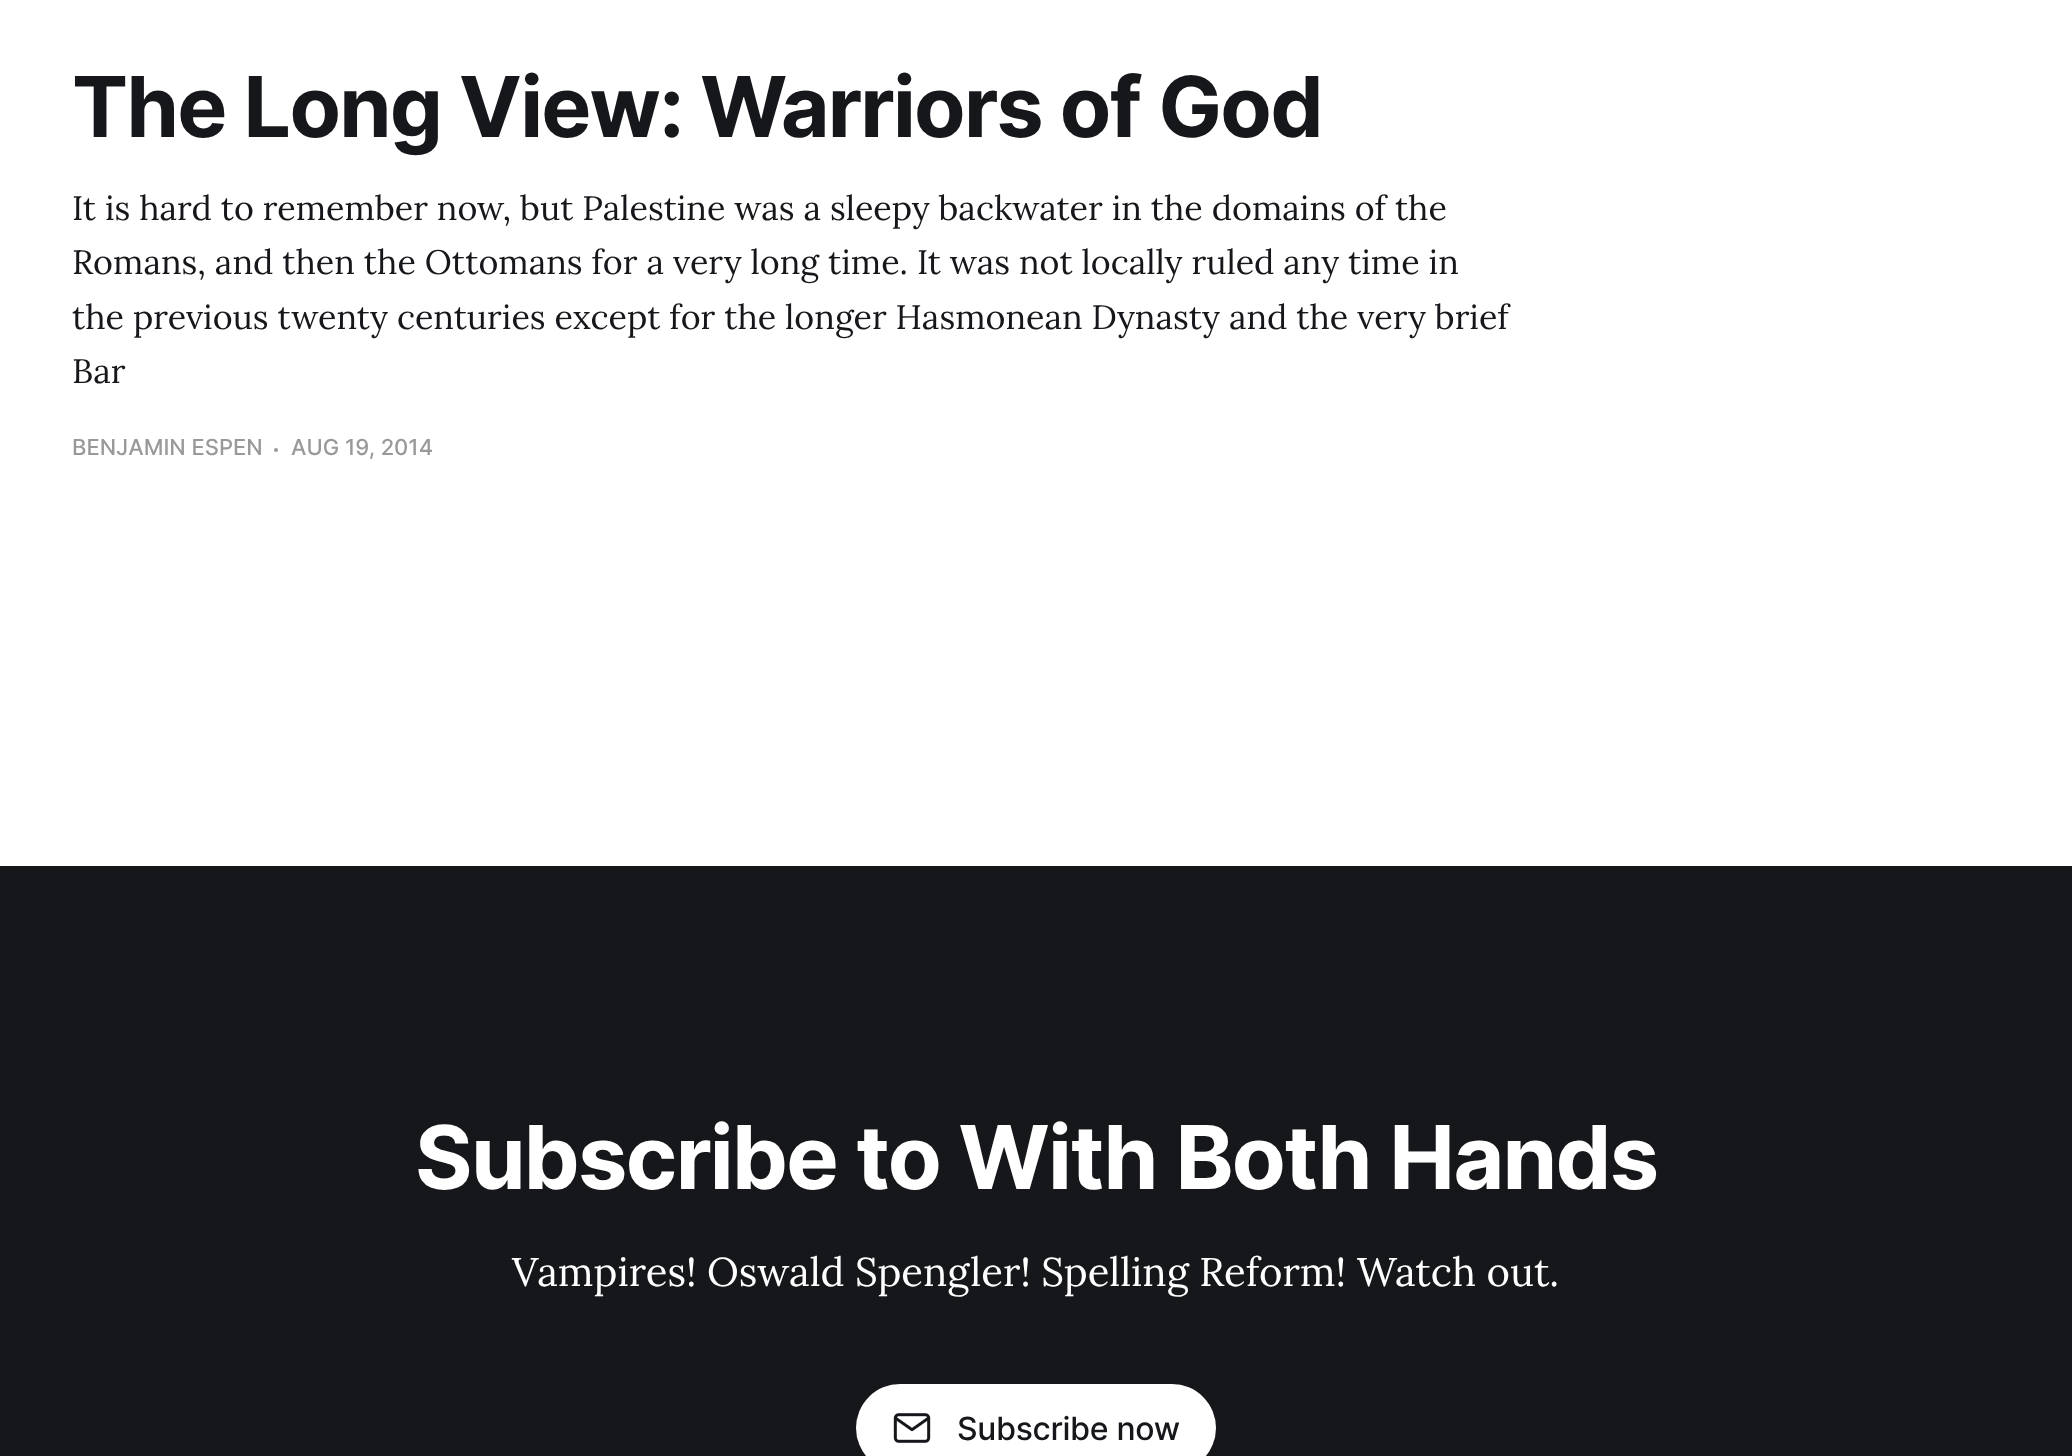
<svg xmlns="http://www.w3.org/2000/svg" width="2072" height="1456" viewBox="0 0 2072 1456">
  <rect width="100%" height="100%" fill="#fff"/>
  <circle cx="276" cy="450" r="2" fill="#999"/>
  <path d="M0 866h2072v590H0z" fill="#15171a"/>
  <rect x="856" y="1384" width="360" height="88" rx="44" fill="#fff"/>
  <image x="893" y="1413" width="38" height="30" href="img/1.png"/>
  <text x="72" y="137" font-family="Inter" font-size="84" font-weight="bold" letter-spacing="-1.7" fill="#15171a">The Long View: Warriors of God</text>
  <g font-family="Lora" font-size="34" fill="#15171a">
    <text x="72" y="220">It is hard to remember now, but Palestine was a sleepy backwater in the domains of the</text>
    <text x="72" y="274">Romans, and then the Ottomans for a very long time. It was not locally ruled any time in</text>
    <text x="72" y="329">the previous twenty centuries except for the longer Hasmonean Dynasty and the very brief</text>
    <text x="72" y="383">Bar</text>
  </g>
  <g font-family="Inter" font-size="22" font-weight="500" fill="#999">
    <text x="72" y="455">BENJAMIN ESPEN</text>
    <text x="291" y="455">AUG 19, 2014</text>
  </g>
  <text x="415" y="1189" font-family="Inter" font-size="88" font-weight="bold" letter-spacing="-1.75" fill="#fff">Subscribe to With Both Hands</text>
  <text x="512" y="1286" font-family="Lora" font-size="40" fill="#fff">Vampires! Oswald Spengler! Spelling Reform! Watch out.</text>
  <text x="957" y="1440" font-family="Inter" font-size="32" font-weight="500" letter-spacing="-0.3" fill="#15171a">Subscribe now</text>
</svg>
